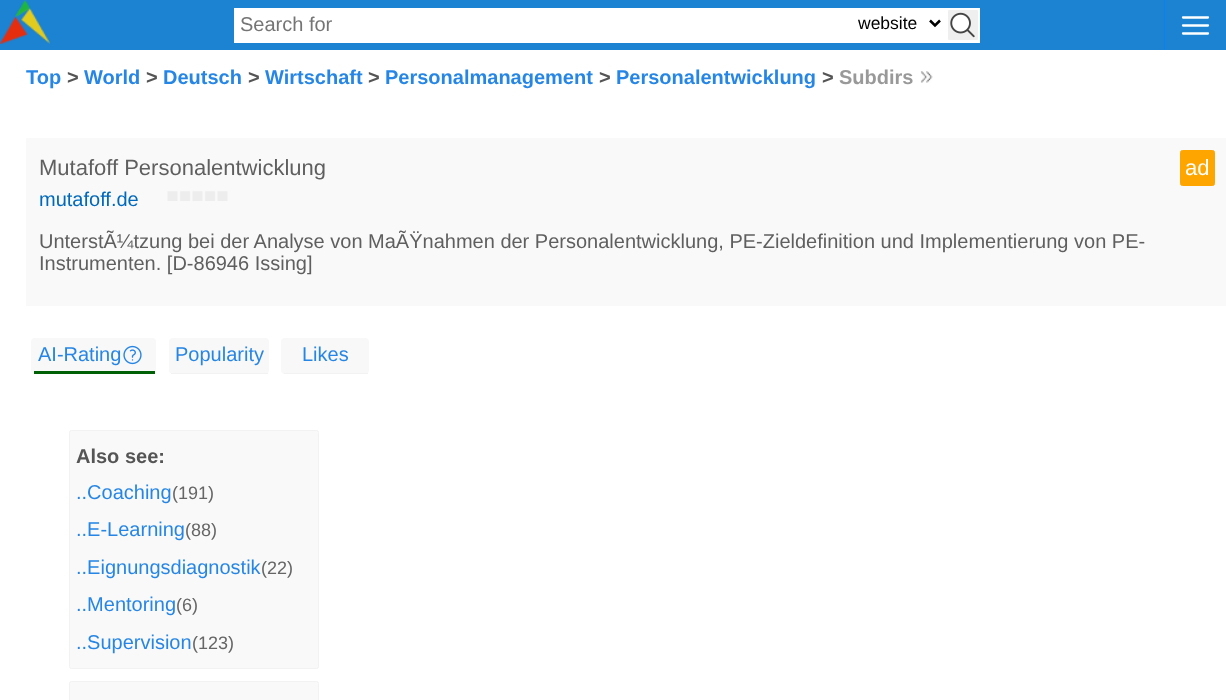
<svg xmlns="http://www.w3.org/2000/svg" width="1226" height="700" viewBox="0 0 1226 700">
  <rect width="100%" height="100%" fill="#fff"/>
  <path d="M0 0h1226v50H0z" fill="#1b83d2"/>
  <image x="0" y="0" width="50" height="44" href="img/1.png"/>
  <path d="M234 8h746v35H234z" fill="#fff"/>
  <path d="M930 20.5L935 25.5L940 20.5" fill="none" stroke="#000" stroke-width="2.5"/>
  <rect x="948" y="10" width="30" height="30" rx="1" fill="#efefef"/>
  <image x="950" y="12" width="25" height="26" href="img/2.png"/>
  <path d="M1164 0h1v50H1164z" fill="#0b81f0"/>
  <path d="M1183 17.5H1208M1183 25.5H1208M1183 33.5H1208" fill="none" stroke="#fff" stroke-width="2.3" stroke-linecap="round" stroke-linejoin="round"/>
  <image x="920" y="71" width="13" height="12" href="img/3.png"/>
  <path d="M26 138h1200v168H26z" fill="#f9f9f9"/>
  <rect x="1180.5" y="150.5" width="34" height="35" rx="2" fill="#ffa500" stroke="#ffa500"/>
  <image x="167" y="191" width="61" height="10" href="img/4.png"/>
  <rect x="31" y="338" width="125" height="36" rx="4" fill="#f8f8f8"/>
  <path d="M34 371h121v3H34z" fill="#006006"/>
  <image x="123" y="345" width="19" height="20" href="img/5.png"/>
  <rect x="169" y="338" width="100" height="36" rx="4" fill="#f8f8f8"/>
  <path d="M171 373h97v1H171z" fill="#f2f2f2"/>
  <rect x="281" y="338" width="88" height="36" rx="4" fill="#f8f8f8"/>
  <path d="M284 373h84v1H284z" fill="#f2f2f2"/>
  <rect x="69.5" y="430.5" width="249" height="238" rx="2" fill="#f9f9f9" stroke="#f2f2f2"/>
  <rect x="69.5" y="681.5" width="249" height="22" rx="2" fill="#f9f9f9" stroke="#f2f2f2"/>
  <text x="240" y="31" font-family="Liberation Sans" font-size="20" fill="#757575">Search for</text>
  <text x="858" y="29" font-family="Liberation Sans" font-size="17.5" fill="#000">website</text>
  <text x="26" y="84" font-family="Liberation Sans" font-size="20" font-weight="bold" fill="#2686e6">Top</text>
  <text x="67" y="84" font-family="Liberation Sans" font-size="20" font-weight="bold" fill="#555">&gt;</text>
  <text x="84" y="84" font-family="Liberation Sans" font-size="20" font-weight="bold" fill="#2686e6">World</text>
  <text x="146" y="84" font-family="Liberation Sans" font-size="20" font-weight="bold" fill="#555">&gt;</text>
  <text x="163" y="84" font-family="Liberation Sans" font-size="20" font-weight="bold" fill="#2686e6">Deutsch</text>
  <text x="248" y="84" font-family="Liberation Sans" font-size="20" font-weight="bold" fill="#555">&gt;</text>
  <text x="265" y="84" font-family="Liberation Sans" font-size="20" font-weight="bold" fill="#2686e6">Wirtschaft</text>
  <text x="368" y="84" font-family="Liberation Sans" font-size="20" font-weight="bold" fill="#555">&gt;</text>
  <text x="385" y="84" font-family="Liberation Sans" font-size="20" font-weight="bold" fill="#2686e6">Personalmanagement</text>
  <text x="599" y="84" font-family="Liberation Sans" font-size="20" font-weight="bold" fill="#555">&gt;</text>
  <text x="616" y="84" font-family="Liberation Sans" font-size="20" font-weight="bold" fill="#2686e6">Personalentwicklung</text>
  <text x="822" y="84" font-family="Liberation Sans" font-size="20" font-weight="bold" fill="#555">&gt;</text>
  <text x="839" y="84" font-family="Liberation Sans" font-size="20" font-weight="bold" fill="#999">Subdirs</text>
  <text x="39" y="175" font-family="Liberation Sans" font-size="22" fill="#5f5f60">Mutafoff Personalentwicklung</text>
  <text x="1185" y="175" font-family="Liberation Sans" font-size="22" fill="#fff">ad</text>
  <text x="39" y="206" font-family="Liberation Sans" font-size="20" fill="#0069bc">mutafoff.de</text>
  <g font-family="Liberation Sans" font-size="20" fill="#5f5f60">
    <text x="39" y="248">UnterstÃ¼tzung bei der Analyse von MaÃŸnahmen der Personalentwicklung, PE-Zieldefinition und Implementierung von PE-</text>
    <text x="39" y="270">Instrumenten. [D-86946 Issing]</text>
  </g>
  <g font-family="Liberation Sans" font-size="20" fill="#2686e6">
    <text x="38" y="361">AI-Rating</text>
    <text x="175" y="361">Popularity</text>
    <text x="302" y="361">Likes</text>
  </g>
  <text x="76" y="463" font-family="Liberation Sans" font-size="20" font-weight="bold" fill="#555">Also see:</text>
  <text x="76" y="499" font-family="Liberation Sans" font-size="20" fill="#2686e6">..Coaching</text>
  <text x="172" y="499" font-family="Liberation Sans" font-size="18" fill="#666">(191)</text>
  <text x="76" y="536" font-family="Liberation Sans" font-size="20" fill="#2686e6">..E-Learning</text>
  <text x="185" y="536" font-family="Liberation Sans" font-size="18" fill="#666">(88)</text>
  <text x="76" y="574" font-family="Liberation Sans" font-size="20" fill="#2686e6">..Eignungsdiagnostik</text>
  <text x="261" y="574" font-family="Liberation Sans" font-size="18" fill="#666">(22)</text>
  <text x="76" y="611" font-family="Liberation Sans" font-size="20" fill="#2686e6">..Mentoring</text>
  <text x="176" y="611" font-family="Liberation Sans" font-size="18" fill="#666">(6)</text>
  <text x="76" y="649" font-family="Liberation Sans" font-size="20" fill="#2686e6">..Supervision</text>
  <text x="192" y="649" font-family="Liberation Sans" font-size="18" fill="#666">(123)</text>
</svg>
